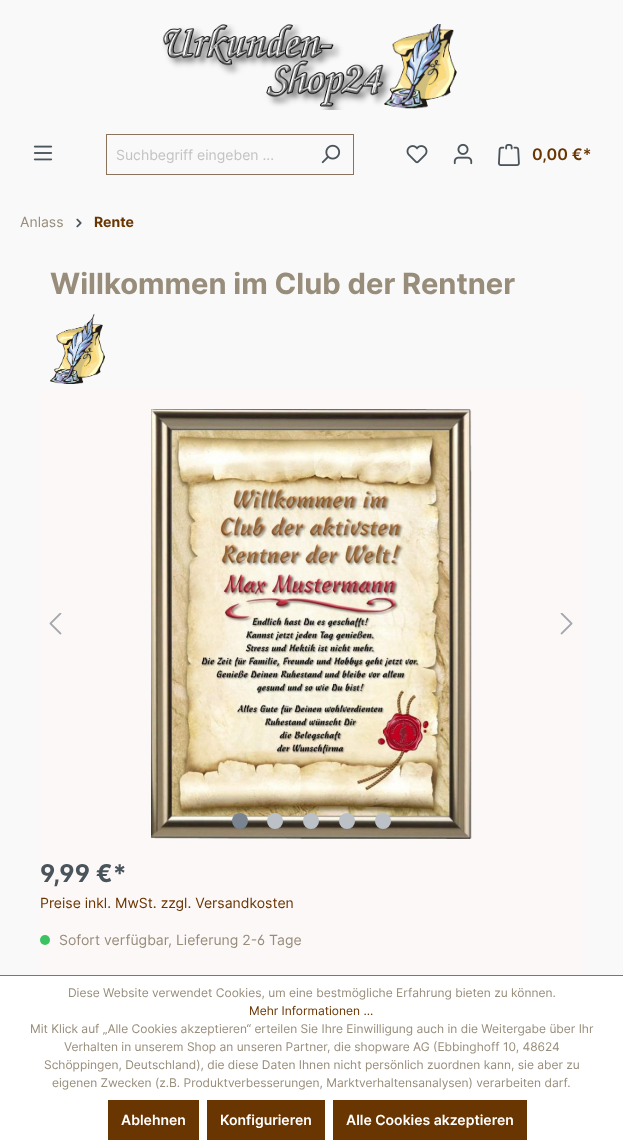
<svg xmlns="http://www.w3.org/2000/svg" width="623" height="1148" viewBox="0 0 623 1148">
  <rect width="100%" height="100%" fill="#f9f9f9"/>
  <image x="162" y="24" width="295" height="86" href="img/1.png"/>
  <image x="33" y="145" width="20" height="16" href="img/2.png"/>
  <path d="M106 134h248v1H106z" fill="#8b735b"/>
  <path d="M106 174h202v1H106z" fill="#8b735b"/>
  <path d="M106 134h1v41H106z" fill="#8b735b"/>
  <path d="M353 134h1v41H353z" fill="#8b735b"/>
  <path d="M307 174h47v1H307z" fill="#8b735b"/>
  <image x="321" y="144" width="20" height="20" href="img/3.png"/>
  <image x="406" y="145" width="22" height="19" href="img/4.png"/>
  <image x="453" y="143" width="20" height="22" href="img/5.png"/>
  <image x="498" y="144" width="22" height="22" href="img/6.png"/>
  <image x="76" y="218" width="6" height="10" href="img/7.png"/>
  <image x="50" y="314" width="55" height="70" href="img/8.png"/>
  <path d="M40 389h543v586H40z" fill="#fcf8f8"/>
  <image x="151" y="409" width="321" height="430" href="img/9.png"/>
  <image x="49" y="613" width="13" height="22" href="img/10.png"/>
  <image x="560" y="613" width="13" height="22" href="img/11.png"/>
  <circle cx="240" cy="821" r="8" fill="#798490"/>
  <circle cx="275" cy="821" r="8" fill="#bcc1c7"/>
  <circle cx="311" cy="821" r="8" fill="#bcc1c7"/>
  <circle cx="347" cy="821" r="8" fill="#bcc1c7"/>
  <circle cx="383" cy="821" r="8" fill="#bcc1c7"/>
  <circle cx="45" cy="940" r="5" fill="#3cc261"/>
  <path d="M0 976h623v172H0z" fill="#fff"/>
  <path d="M0 975h623v1H0z" fill="#8b735b"/>
  <path d="M108 1100h91v40H108z" fill="#693500"/>
  <path d="M207 1100h118v40H207z" fill="#693500"/>
  <path d="M333 1100h194v40H333z" fill="#693500"/>
  <text x="116" y="160" font-family="Inter" font-size="14" fill="#c3c3c3">Suchbegriff eingeben ...</text>
  <text x="532" y="160" font-family="Inter" font-size="16" font-weight="600" fill="#693500">0,00 €*</text>
  <text x="20" y="227" font-family="Inter" font-size="14" fill="#988d7b">Anlass</text>
  <text x="94" y="227" font-family="Inter" font-size="14" font-weight="bold" fill="#693500">Rente</text>
  <text x="50" y="294" font-family="Inter" font-size="29.1" font-weight="bold" fill="#988d7b">Willkommen im Club der Rentner</text>
  <text x="40" y="882" font-family="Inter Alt" font-size="24.5" font-weight="bold" fill="#4a545b">9,99 €*</text>
  <text x="40" y="908" font-family="Inter" font-size="14" fill="#693500">Preise inkl. MwSt. zzgl. Versandkosten</text>
  <text x="59" y="945" font-family="Inter Alt" font-size="14" fill="#988d7b">Sofort verfügbar, Lieferung 2-6 Tage</text>
  <text x="68" y="997" font-family="Inter" font-size="12" fill="#988d7b">Diese Website verwendet Cookies, um eine bestmögliche Erfahrung bieten zu können.</text>
  <text x="249" y="1015" font-family="Inter" font-size="12" fill="#693500">Mehr Informationen ...</text>
  <g font-family="Inter" font-size="12" fill="#988d7b">
    <text x="30" y="1033">Mit Klick auf „Alle Cookies akzeptieren“ erteilen Sie Ihre Einwilligung auch in die Weitergabe über Ihr</text>
    <text x="64" y="1051">Verhalten in unserem Shop an unseren Partner, die shopware AG (Ebbinghoff 10, 48624</text>
    <text x="44" y="1069">Schöppingen, Deutschland), die diese Daten Ihnen nicht persönlich zuordnen kann, sie aber zu</text>
    <text x="52" y="1087">eigenen Zwecken (z.B. Produktverbesserungen, Marktverhaltensanalysen) verarbeiten darf.</text>
  </g>
  <g font-family="Inter" font-size="14" font-weight="600" fill="#fff">
    <text x="121" y="1125">Ablehnen</text>
    <text x="220" y="1125">Konfigurieren</text>
    <text x="346" y="1125">Alle Cookies akzeptieren</text>
  </g>
</svg>
